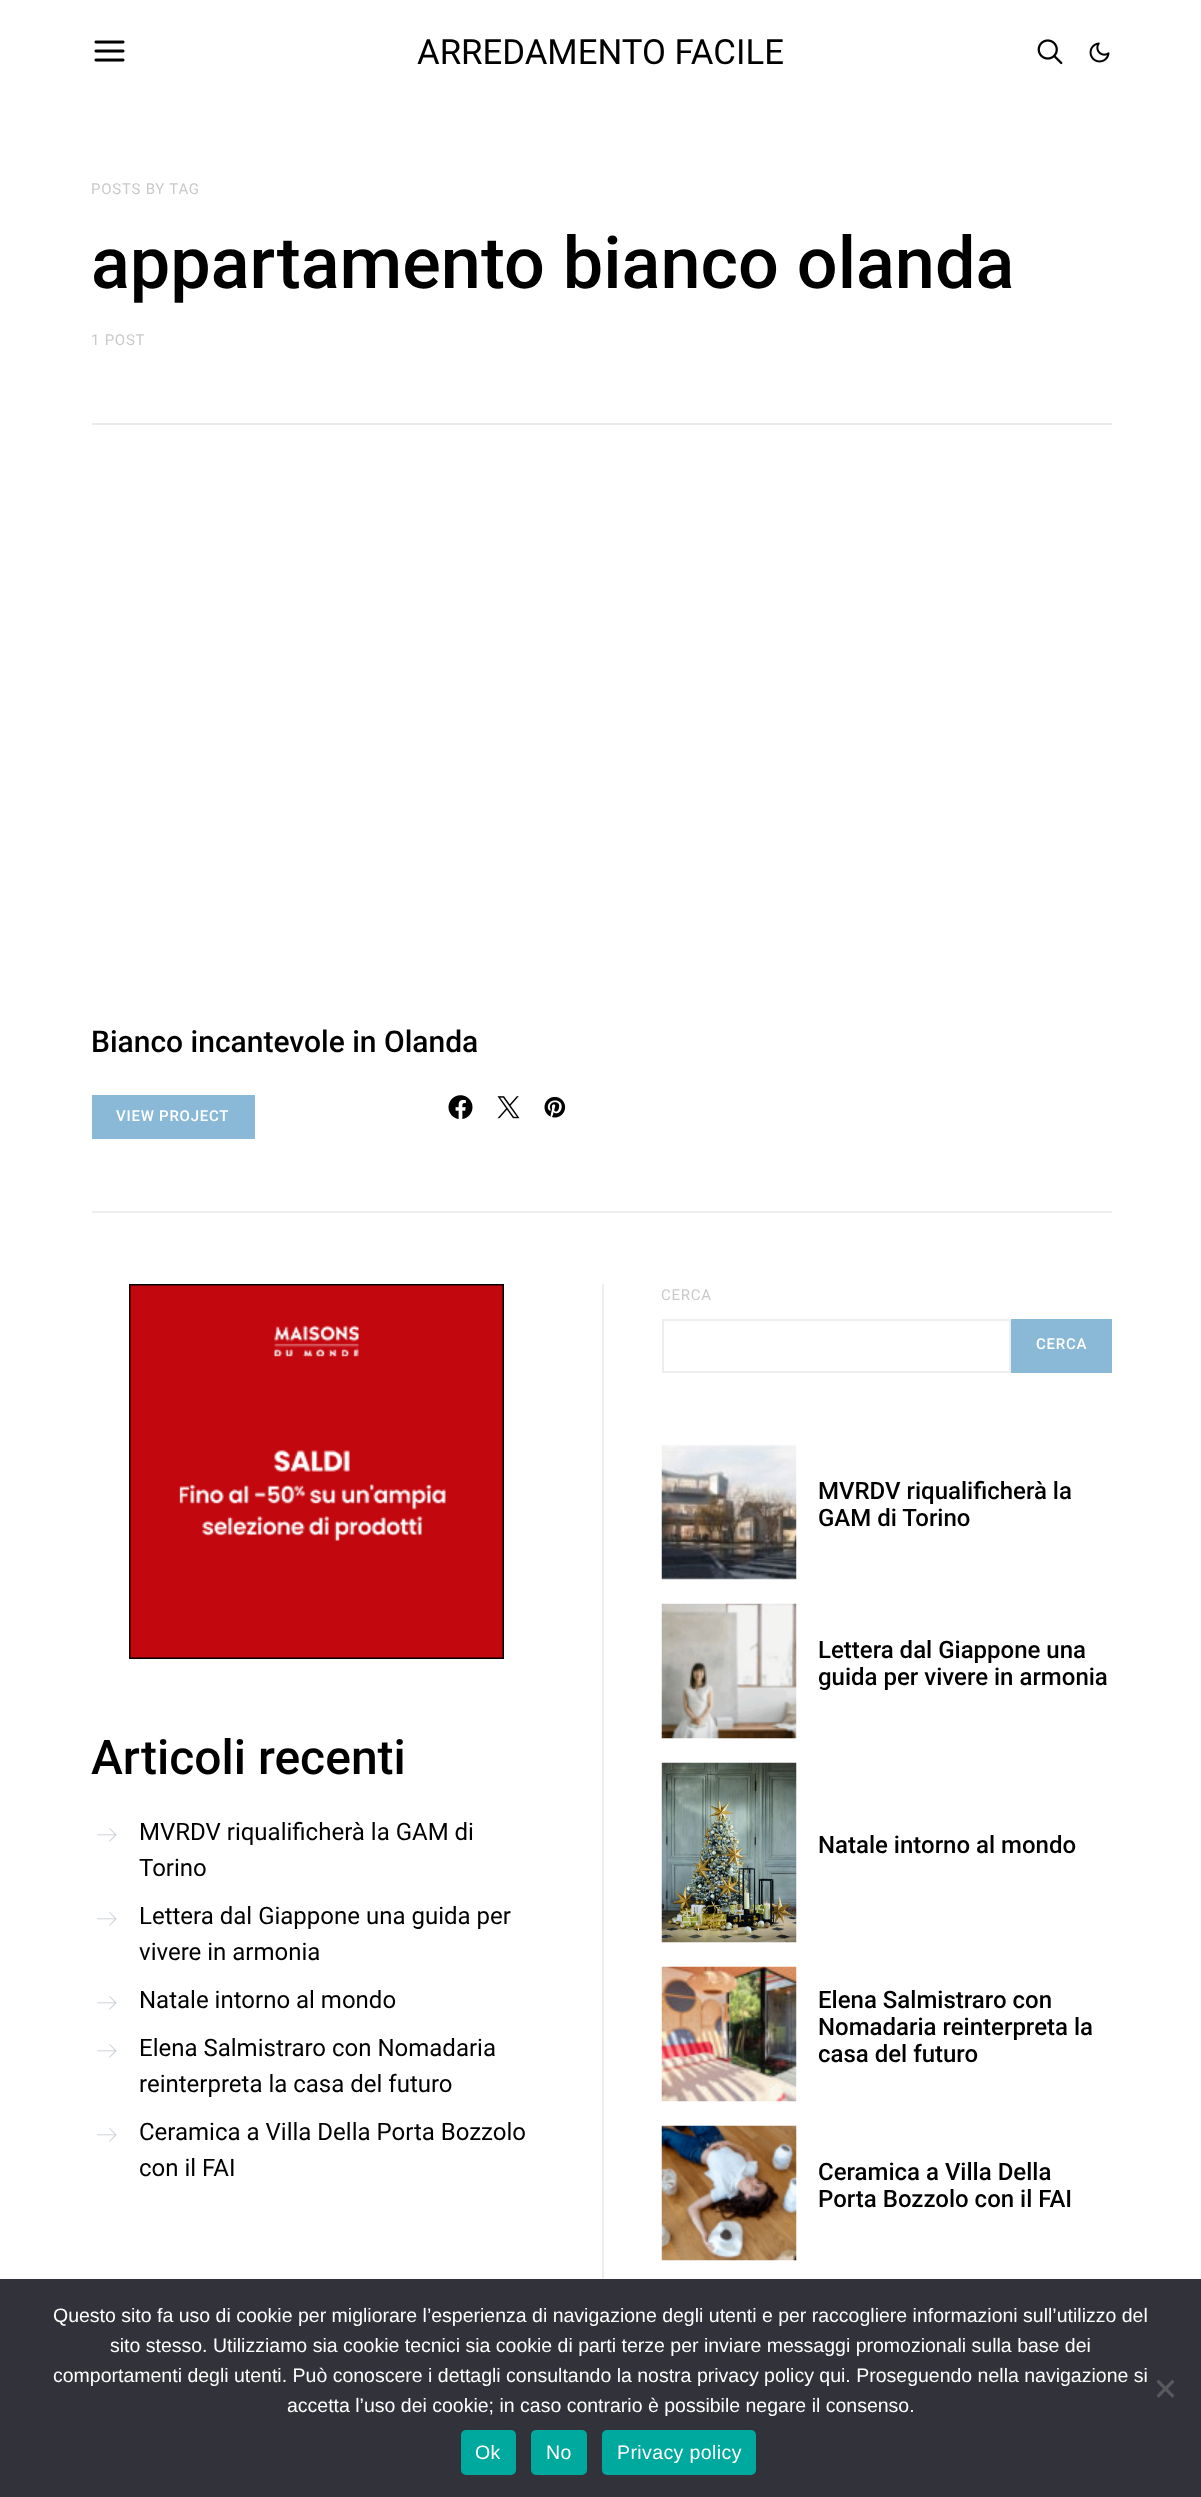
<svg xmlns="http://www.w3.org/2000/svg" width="1201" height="2497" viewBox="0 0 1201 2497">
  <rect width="100%" height="100%" fill="#fff"/>
  <image x="94" y="40" width="31" height="22" href="img/1.png"/>
  <image x="1037" y="39" width="26" height="26" href="img/2.png"/>
  <image x="1089" y="42" width="21" height="21" href="img/3.png"/>
  <path d="M92 1211h1020v2H92z" fill="#eee"/>
  <path d="M92 423h1020v2H92z" fill="#e9ecef"/>
  <path d="M92 1095h163v44H92z" fill="#89b9d6"/>
  <image x="448" y="1095" width="25" height="24" href="img/4.png"/>
  <image x="497" y="1096" width="23" height="23" href="img/5.png"/>
  <image x="544" y="1096" width="22" height="22" href="img/6.png"/>
  <image x="129" y="1284" width="375" height="375" href="img/7.png"/>
  <image x="97" y="1828" width="20" height="14" href="img/8.png"/>
  <image x="97" y="1912" width="20" height="14" href="img/8.png"/>
  <image x="97" y="1996" width="20" height="14" href="img/8.png"/>
  <image x="97" y="2044" width="20" height="14" href="img/8.png"/>
  <image x="97" y="2128" width="20" height="14" href="img/8.png"/>
  <path d="M602 1284h2v995H602z" fill="#eee"/>
  <path d="M663 1320h347v52H663z" fill="none" stroke="#eee" stroke-width="2"/>
  <path d="M1011 1319h101v54H1011z" fill="#89b9d6"/>
  <image x="661" y="1444" width="136" height="136" href="img/9.png"/>
  <image x="661" y="1603" width="136" height="136" href="img/10.png"/>
  <image x="661" y="1762" width="136" height="181" href="img/11.png"/>
  <image x="661" y="1966" width="136" height="136" href="img/12.png"/>
  <image x="661" y="2125" width="136" height="136" href="img/13.png"/>
  <path d="M0 2279h1201v218H0z" fill="#32323a"/>
  <path d="M1172.5 2379.5L1174.5 2382L1158.5 2398L1156.5 2395.5Z" fill="#59595d"/>
  <path d="M1156.5 2382L1158.5 2379.5L1174.5 2395.5L1172.5 2398Z" fill="#59595d"/>
  <rect x="461" y="2430" width="55" height="45" rx="5" fill="#00a99d"/>
  <rect x="531" y="2430" width="56" height="45" rx="5" fill="#00a99d"/>
  <rect x="602" y="2430" width="154" height="45" rx="5" fill="#00a99d"/>
  <text x="417" y="64" font-family="Roboto" font-size="34.75" fill="#000">ARREDAMENTO FACILE</text>
  <text x="91" y="194" font-family="Roboto" font-size="15" letter-spacing="0.75" fill="#c9c9c9">POSTS BY TAG</text>
  <text x="91" y="288" font-family="Roboto" font-size="72" font-weight="500" fill="#000">appartamento bianco olanda</text>
  <text x="91" y="345" font-family="Roboto" font-size="15" letter-spacing="0.75" fill="#c9c9c9">1 POST</text>
  <text x="91" y="1052" font-family="Roboto" font-size="30" font-weight="500" fill="#000">Bianco incantevole in Olanda</text>
  <text x="116" y="1121" font-family="Roboto" font-size="15" font-weight="500" letter-spacing="0.75" fill="#fff">VIEW PROJECT</text>
  <text x="91" y="1774" font-family="Roboto" font-size="48" font-weight="500" fill="#000">Articoli recenti</text>
  <g font-family="Roboto" font-size="24" fill="#000">
    <text x="139" y="1840">MVRDV riqualificherà la GAM di</text>
    <text x="139" y="1876">Torino</text>
    <text x="139" y="1924">Lettera dal Giappone una guida per</text>
    <text x="139" y="1960">vivere in armonia</text>
    <text x="139" y="2008">Natale intorno al mondo</text>
    <text x="139" y="2056">Elena Salmistraro con Nomadaria</text>
    <text x="139" y="2092">reinterpreta la casa del futuro</text>
    <text x="139" y="2140">Ceramica a Villa Della Porta Bozzolo</text>
    <text x="139" y="2176">con il FAI</text>
  </g>
  <text x="661" y="1300" font-family="Roboto" font-size="15" letter-spacing="0.75" fill="#c9c9c9">CERCA</text>
  <text x="1036" y="1349" font-family="Roboto" font-size="15" font-weight="500" letter-spacing="0.75" fill="#fff">CERCA</text>
  <g font-family="Roboto" font-size="24" font-weight="500" fill="#000">
    <text x="818" y="1499">MVRDV riqualificherà la</text>
    <text x="818" y="1526">GAM di Torino</text>
    <text x="818" y="1658">Lettera dal Giappone una</text>
    <text x="818" y="1685">guida per vivere in armonia</text>
    <text x="818" y="1853">Natale intorno al mondo</text>
    <text x="818" y="2008">Elena Salmistraro con</text>
    <text x="818" y="2035">Nomadaria reinterpreta la</text>
    <text x="818" y="2062">casa del futuro</text>
    <text x="818" y="2180">Ceramica a Villa Della</text>
    <text x="818" y="2207">Porta Bozzolo con il FAI</text>
  </g>
  <g font-family="Liberation Sans" font-size="19.5" fill="#fff">
    <text x="53" y="2322">Questo sito fa uso di cookie per migliorare l’esperienza di navigazione degli utenti e per raccogliere informazioni sull’utilizzo del</text>
    <text x="110" y="2352">sito stesso. Utilizziamo sia cookie tecnici sia cookie di parti terze per inviare messaggi promozionali sulla base dei</text>
    <text x="53" y="2382">comportamenti degli utenti. Può conoscere i dettagli consultando la nostra privacy policy qui. Proseguendo nella navigazione si</text>
    <text x="287" y="2412">accetta l’uso dei cookie; in caso contrario è possibile negare il consenso.</text>
  </g>
  <g font-family="Liberation Sans" font-size="19.5" letter-spacing="0.4" fill="#fff">
    <text x="475" y="2459">Ok</text>
    <text x="546" y="2459">No</text>
    <text x="617" y="2459">Privacy policy</text>
  </g>
</svg>
